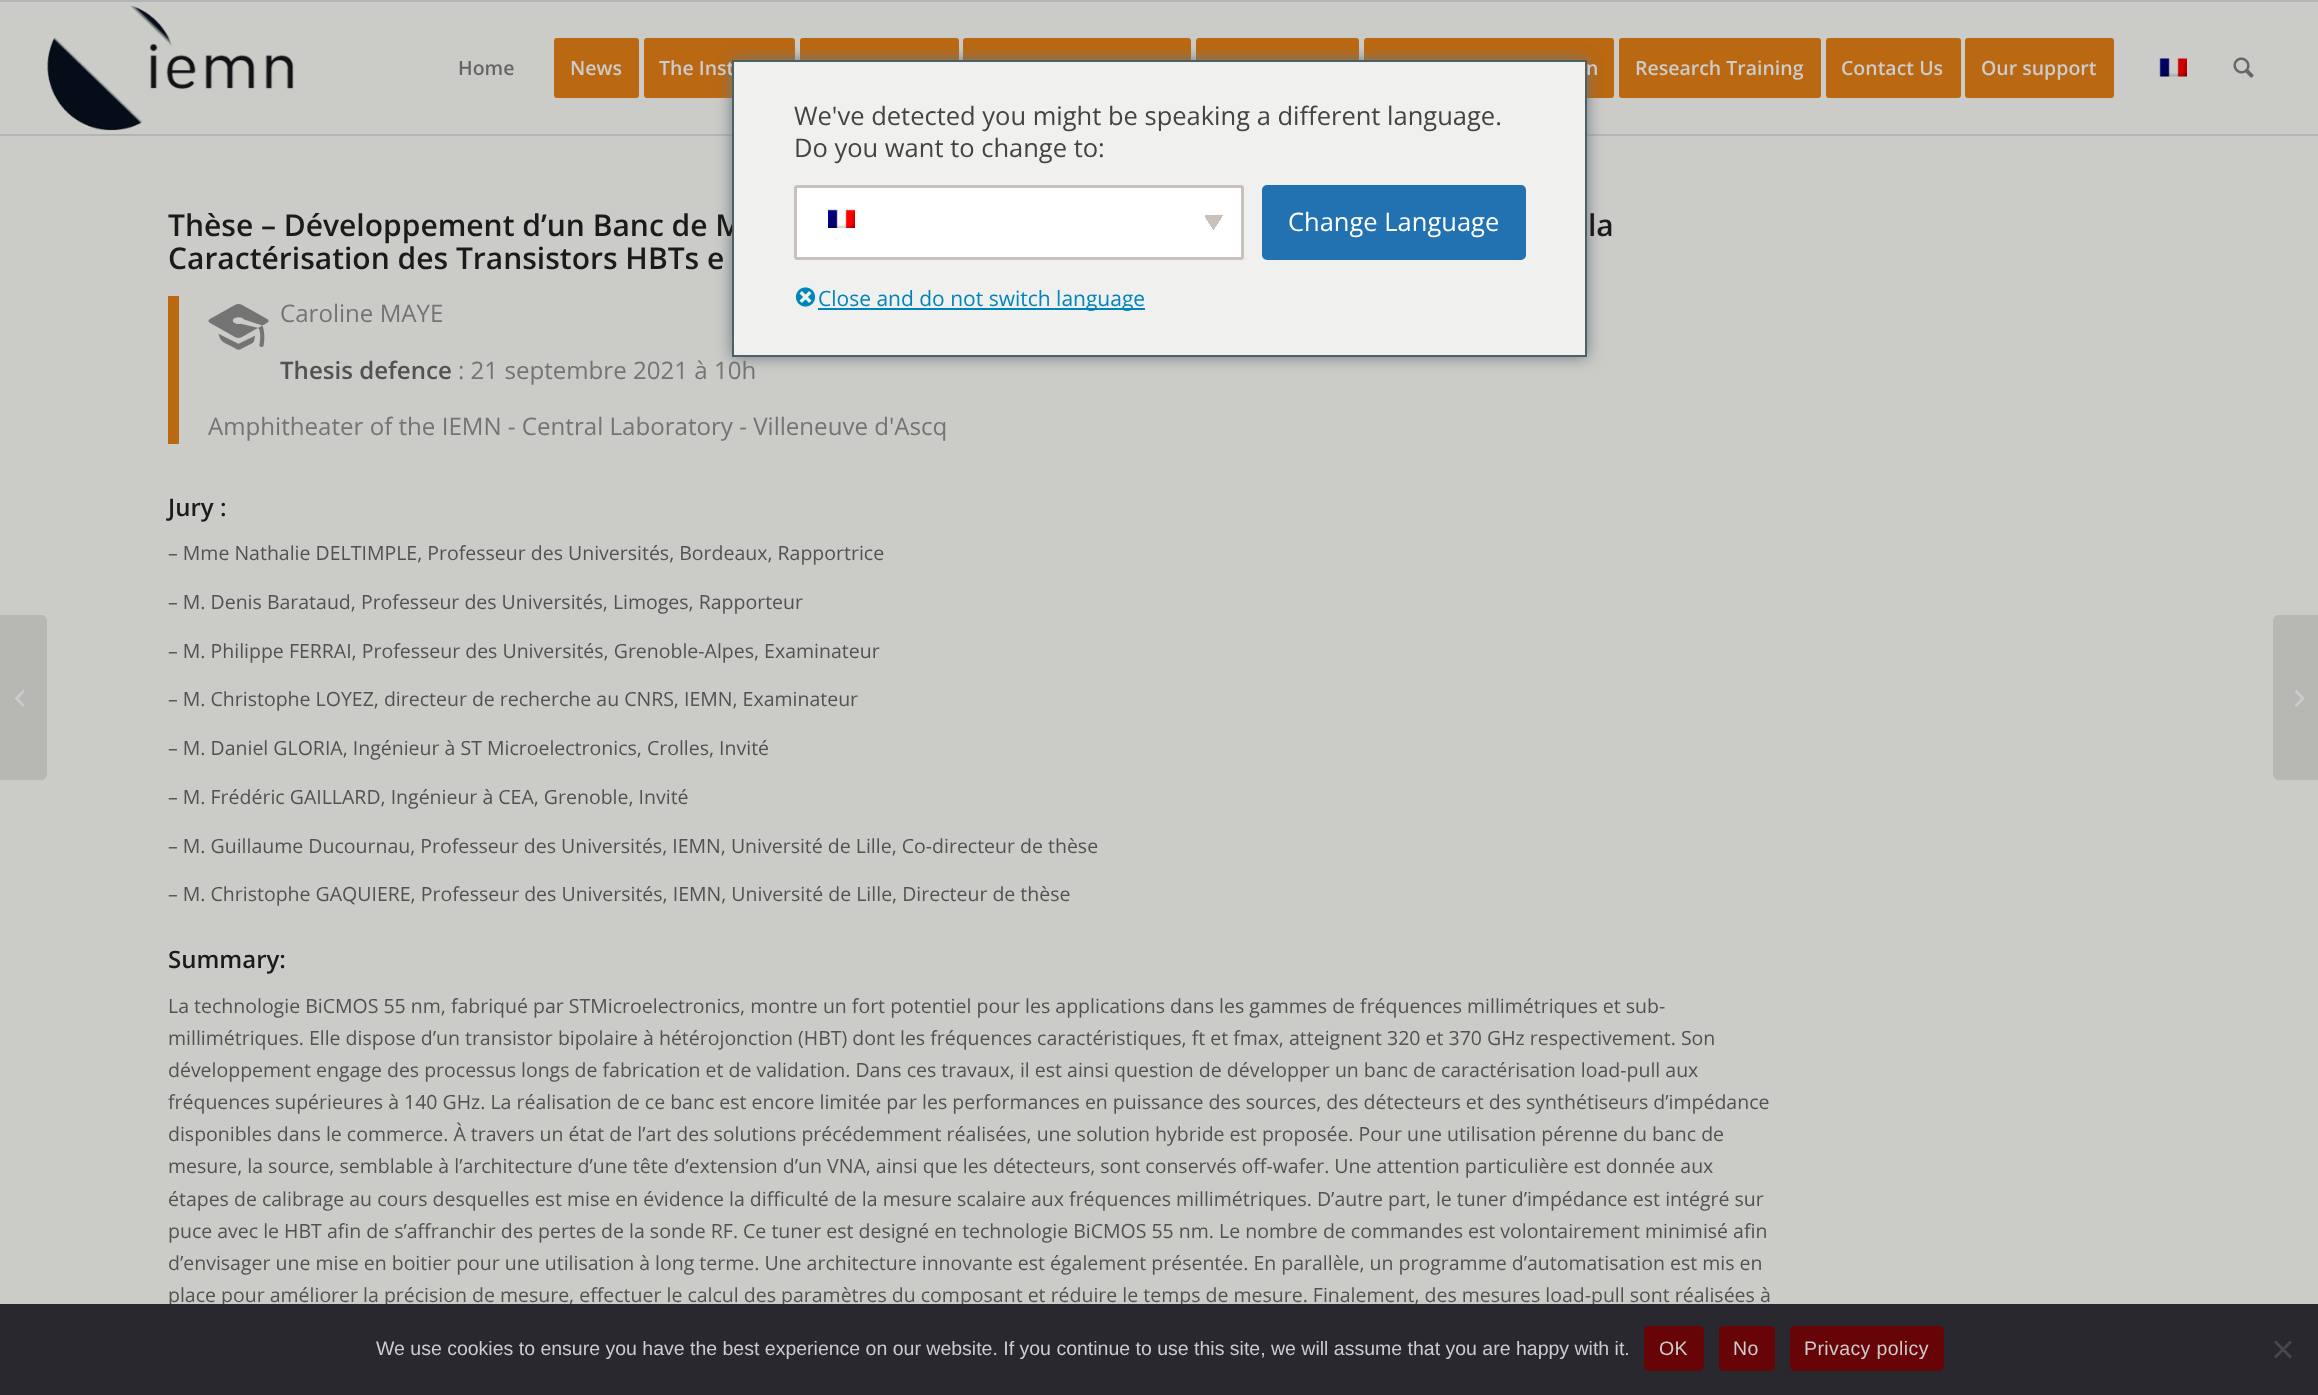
<svg xmlns="http://www.w3.org/2000/svg" width="2318" height="1395" viewBox="0 0 2318 1395">
  <defs>
    <linearGradient id="g1" gradientUnits="userSpaceOnUse" x1="1211" y1="219" x2="1225" y2="228"><stop offset="0.5" stop-color="#c9c0bb"/><stop offset="0.5" stop-color="#fff"/></linearGradient>
    <linearGradient id="g2" gradientUnits="userSpaceOnUse" x1="1202" y1="228" x2="1216" y2="219"><stop offset="0.5" stop-color="#fff"/><stop offset="0.5" stop-color="#c9c0bb"/></linearGradient>
  </defs>
  <rect width="100%" height="100%" fill="#cbcbc7"/>
  <path d="M0 0h2318v2H0z" fill="#b4b4b4"/>
  <path d="M0 134h2318v2H0z" fill="#b4b4b4"/>
  <image x="47" y="5" width="247" height="126" href="img/1.png"/>
  <rect x="555.5" y="39.5" width="82" height="57" rx="1.5" fill="#ba6811" stroke="#ba6811" stroke-width="3"/>
  <rect x="645.5" y="39.5" width="148" height="57" rx="1.5" fill="#ba6811" stroke="#ba6811" stroke-width="3"/>
  <rect x="801.5" y="39.5" width="156" height="57" rx="1.5" fill="#ba6811" stroke="#ba6811" stroke-width="3"/>
  <rect x="964.5" y="39.5" width="225" height="57" rx="1.5" fill="#ba6811" stroke="#ba6811" stroke-width="3"/>
  <rect x="1197.5" y="39.5" width="160" height="57" rx="1.5" fill="#ba6811" stroke="#ba6811" stroke-width="3"/>
  <rect x="1365.5" y="39.5" width="247" height="57" rx="1.5" fill="#ba6811" stroke="#ba6811" stroke-width="3"/>
  <rect x="1620.5" y="39.5" width="199" height="57" rx="1.5" fill="#ba6811" stroke="#ba6811" stroke-width="3"/>
  <rect x="1827.5" y="39.5" width="132" height="57" rx="1.5" fill="#ba6811" stroke="#ba6811" stroke-width="3"/>
  <rect x="1966.5" y="39.5" width="146" height="57" rx="1.5" fill="#ba6811" stroke="#ba6811" stroke-width="3"/>
  <image x="2159" y="58" width="28" height="19" href="img/2.png"/>
  <image x="2233" y="57" width="21" height="21" href="img/3.png"/>
  <path d="M0 615H41C44.5 615 47 617.5 47 621V774C47 777.5 44.5 780 41 780H0Z" fill="#b7b7b3"/>
  <image x="15" y="690" width="10" height="17" href="img/4.png"/>
  <path d="M168 296h11v148H168z" fill="#ba6811"/>
  <image x="208" y="304" width="61" height="46" href="img/5.png"/>
  <path d="M2279 615H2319V780H2279C2275.5 780 2273 777.5 2273 774V621C2273 617.5 2275.5 615 2279 615Z" fill="#b7b7b3"/>
  <image x="2295" y="690" width="10" height="17" href="img/6.png"/>
  <path d="M732 60h855v297H732z" fill="#6c7781" filter="blur(7.5px)"/>
  <text x="458" y="75" font-family="Open Sans" font-size="19.5" font-weight="600" fill="#666">Home</text>
  <g font-family="Open Sans" font-size="19.5" font-weight="600" fill="#ccc">
    <text x="570" y="75">News</text>
    <text x="659" y="75">The Inst</text>
    <text x="1586" y="75">n</text>
    <text x="1635" y="75">Research Training</text>
    <text x="1841" y="75">Contact Us</text>
    <text x="1981" y="75">Our support</text>
  </g>
  <g font-family="Open Sans" font-size="30" font-weight="600" fill="#1b1b1b">
    <text x="168" y="236">Thèse – Développement d’un Banc de M</text>
    <text x="1588" y="236">la</text>
    <text x="168" y="269">Caractérisation des Transistors HBTs e</text>
  </g>
  <text x="280" y="322" font-family="Open Sans" font-size="24.1" fill="#747474">Caroline MAYE</text>
  <text x="280" y="379" font-family="Open Sans" font-size="24.1" font-weight="600" fill="#525252">Thesis defence</text>
  <g font-family="Open Sans" font-size="24.1" fill="#747474">
    <text x="458" y="379">: 21 septembre 2021 à 10h</text>
    <text x="208" y="435">Amphitheater of the IEMN - Central Laboratory - Villeneuve d'Ascq</text>
  </g>
  <text x="168" y="516" font-family="Open Sans" font-size="24" font-weight="600" fill="#1b1b1b">Jury :</text>
  <g font-family="Open Sans" font-size="19.5" fill="#525252">
    <text x="168" y="560">– Mme Nathalie DELTIMPLE, Professeur des Universités, Bordeaux, Rapportrice</text>
    <text x="168" y="609">– M. Denis Barataud, Professeur des Universités, Limoges, Rapporteur</text>
    <text x="168" y="658">– M. Philippe FERRAI, Professeur des Universités, Grenoble-Alpes, Examinateur</text>
    <text x="168" y="706">– M. Christophe LOYEZ, directeur de recherche au CNRS, IEMN, Examinateur</text>
    <text x="168" y="755">– M. Daniel GLORIA, Ingénieur à ST Microelectronics, Crolles, Invité</text>
    <text x="168" y="804">– M. Frédéric GAILLARD, Ingénieur à CEA, Grenoble, Invité</text>
    <text x="168" y="853">– M. Guillaume Ducournau, Professeur des Universités, IEMN, Université de Lille, Co-directeur de thèse</text>
    <text x="168" y="901">– M. Christophe GAQUIERE, Professeur des Universités, IEMN, Université de Lille, Directeur de thèse</text>
  </g>
  <text x="168" y="968" font-family="Open Sans" font-size="24" font-weight="600" fill="#1b1b1b">Summary:</text>
  <g font-family="Open Sans" font-size="19.5" fill="#525252">
    <text x="168" y="1013">La technologie BiCMOS 55 nm, fabriqué par STMicroelectronics, montre un fort potentiel pour les applications dans les gammes de fréquences millimétriques et sub-</text>
    <text x="168" y="1045">millimétriques. Elle dispose d’un transistor bipolaire à hétérojonction (HBT) dont les fréquences caractéristiques, ft et fmax, atteignent 320 et 370 GHz respectivement. Son</text>
    <text x="168" y="1077">développement engage des processus longs de fabrication et de validation. Dans ces travaux, il est ainsi question de développer un banc de caractérisation load-pull aux</text>
    <text x="168" y="1109">fréquences supérieures à 140 GHz. La réalisation de ce banc est encore limitée par les performances en puissance des sources, des détecteurs et des synthétiseurs d’impédance</text>
    <text x="168" y="1141">disponibles dans le commerce. À travers un état de l’art des solutions précédemment réalisées, une solution hybride est proposée. Pour une utilisation pérenne du banc de</text>
    <text x="168" y="1173">mesure, la source, semblable à l’architecture d’une tête d’extension d’un VNA, ainsi que les détecteurs, sont conservés off-wafer. Une attention particulière est donnée aux</text>
    <text x="168" y="1206">étapes de calibrage au cours desquelles est mise en évidence la difficulté de la mesure scalaire aux fréquences millimétriques. D’autre part, le tuner d’impédance est intégré sur</text>
    <text x="168" y="1238">puce avec le HBT afin de s’affranchir des pertes de la sonde RF. Ce tuner est designé en technologie BiCMOS 55 nm. Le nombre de commandes est volontairement minimisé afin</text>
    <text x="168" y="1270">d’envisager une mise en boitier pour une utilisation à long terme. Une architecture innovante est également présentée. En parallèle, un programme d’automatisation est mis en</text>
    <text x="168" y="1302">place pour améliorer la précision de mesure, effectuer le calcul des paramètres du composant et réduire le temps de mesure. Finalement, des mesures load-pull sont réalisées à</text>
  </g>
  <path d="M733 61h853v295H733z" fill="#f0f0ee" stroke="#4c6066" stroke-width="2"/>
  <g font-family="Open Sans" font-size="25.5" fill="#444">
    <text x="794" y="125">We've detected you might be speaking a different language.</text>
    <text x="794" y="157">Do you want to change to:</text>
  </g>
  <rect x="794" y="185" width="450" height="75" rx="3" fill="#fff"/>
  <path d="M1214 215h9v14H1214z" fill="url(#g1)"/>
  <path d="M1205 215h9v15H1205z" fill="url(#g2)"/>
  <rect x="795.5" y="186.5" width="447" height="72" rx="1.5" fill="none" stroke="#c9c0bb" stroke-width="3"/>
  <image x="828" y="209" width="27" height="19" href="img/7.png"/>
  <rect x="1263" y="186" width="262" height="73" rx="4" fill="#2271b1" stroke="#2271b1" stroke-width="2"/>
  <text x="1288" y="231" font-family="Open Sans" font-size="25.5" fill="#fff">Change Language</text>
  <image x="795" y="287" width="21" height="20" href="img/8.png"/>
  <path d="M818 308h327v2H818z" fill="#0085ba"/>
  <text x="818" y="306" font-family="Open Sans" font-size="21" fill="#0085ba">Close and do not switch language</text>
  <path d="M0 1304h2318v91H0z" fill="#28282e"/>
  <text x="376" y="1355" font-family="Liberation Sans" font-size="19.5" fill="#ccc">We use cookies to ensure you have the best experience on our website. If you continue to use this site, we will assume that you are happy with it.</text>
  <rect x="1644" y="1326" width="60" height="45" rx="5" fill="#670407"/>
  <text x="1659" y="1355" font-family="Liberation Sans" font-size="19.5" letter-spacing="0.4" fill="#ccc">OK</text>
  <rect x="1719" y="1326" width="56" height="45" rx="5" fill="#670407"/>
  <text x="1733" y="1355" font-family="Liberation Sans" font-size="19.5" letter-spacing="0.4" fill="#ccc">No</text>
  <rect x="1790" y="1326" width="154" height="45" rx="5" fill="#670407"/>
  <text x="1804" y="1355" font-family="Liberation Sans" font-size="19.5" letter-spacing="0.4" fill="#ccc">Privacy policy</text>
  <path d="M2290 1340.5L2292 1342.5L2276 1358.5L2274 1356.5Z" fill="#47474a"/>
  <path d="M2274 1342.5L2276 1340.5L2292 1356.5L2290 1358.5Z" fill="#47474a"/>
</svg>
